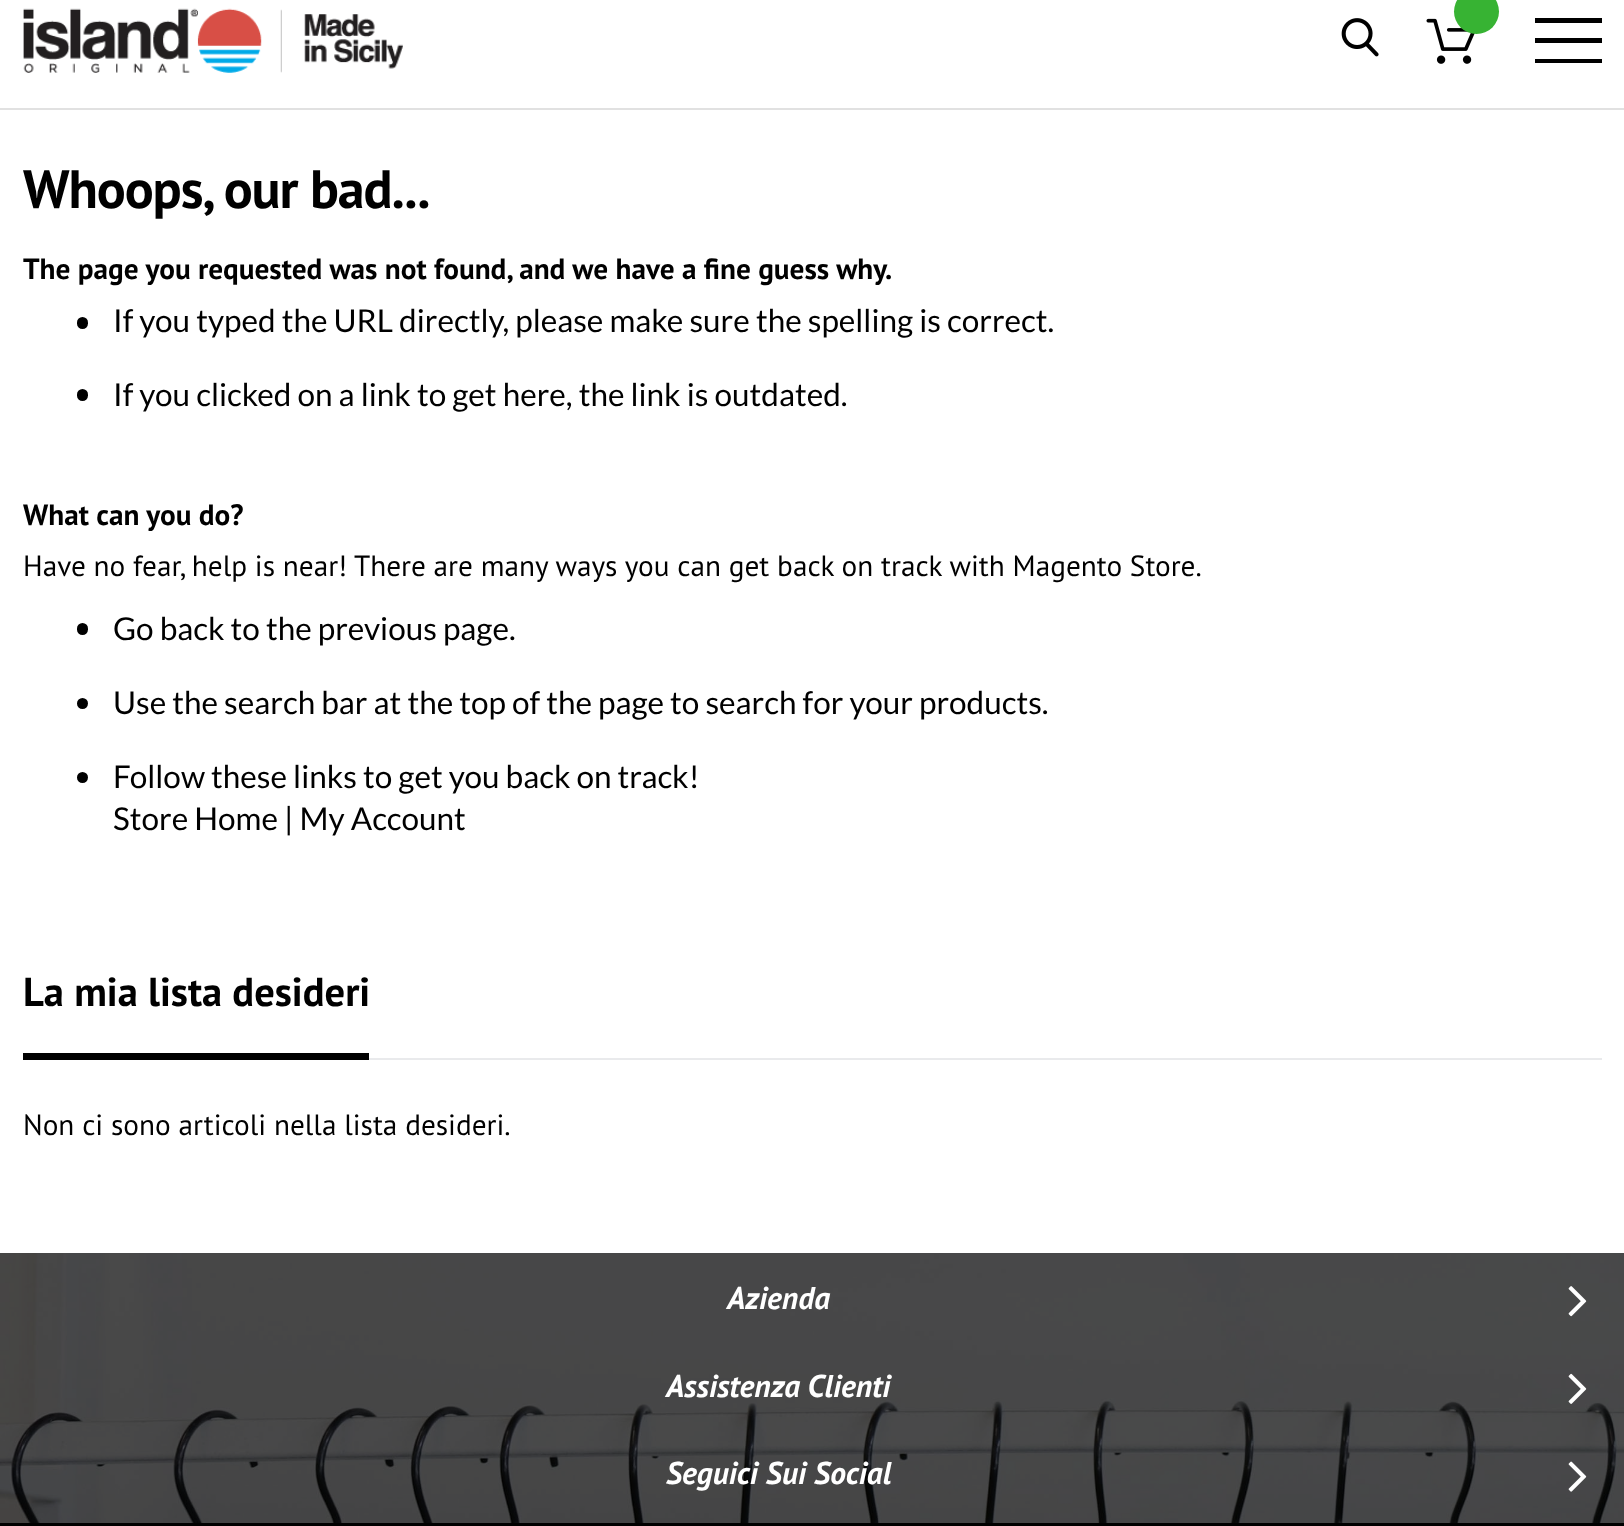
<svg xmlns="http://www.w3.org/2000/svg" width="1624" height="1526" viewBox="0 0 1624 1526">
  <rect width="100%" height="100%" fill="#fff"/>
  <path d="M0 108h1624v2H0z" fill="#e1e1e1"/>
  <image x="1341" y="18" width="38" height="39" href="img/1.png"/>
  <image x="1426" y="18" width="49" height="46" href="img/2.png"/>
  <circle cx="1476.5" cy="11.5" r="22.5" fill="#37b333"/>
  <image x="23" y="8" width="380" height="65" href="img/3.png"/>
  <path d="M1535 18h67v5H1535z" fill="#000"/>
  <path d="M1535 59h67v4H1535z" fill="#000"/>
  <path d="M1535 38h67v5H1535z" fill="#000"/>
  <rect x="77" y="317" width="11" height="12" rx="5.5" fill="#000"/>
  <rect x="77" y="389" width="11" height="12" rx="5.5" fill="#000"/>
  <rect x="77" y="623" width="11" height="12" rx="5.5" fill="#000"/>
  <circle cx="82.5" cy="703.5" r="5.5" fill="#000"/>
  <circle cx="82.5" cy="777.5" r="5.5" fill="#000"/>
  <path d="M369 1058h1233v2H369z" fill="#e9eaec"/>
  <path d="M23 1053h346v7H23z" fill="#000"/>
  <image x="0" y="1253" width="1624" height="270" href="img/4.png"/>
  <image x="1568" y="1286" width="19" height="31" href="img/5.png"/>
  <image x="1568" y="1373" width="19" height="31" href="img/6.png"/>
  <image x="1568" y="1461" width="19" height="31" href="img/7.png"/>
  <path d="M0 1523h1624v3H0z" fill="#000"/>
  <text x="23" y="208" font-family="PT Sans" font-size="54" font-weight="bold" letter-spacing="-1.1" fill="#000">Whoops, our bad...</text>
  <text x="23" y="279" font-family="PT Sans" font-size="29.25" font-weight="bold" fill="#000">The page you requested was not found, and we have a fine guess why.</text>
  <g font-family="Lato" font-size="31.5" fill="#000">
    <text x="113" y="332">If you typed the URL directly, please make sure the spelling is correct.</text>
    <text x="113" y="406">If you clicked on a link to get here, the link is outdated.</text>
  </g>
  <text x="23" y="525" font-family="PT Sans" font-size="29.25" font-weight="bold" fill="#000">What can you do?</text>
  <text x="23" y="576" font-family="PT Sans" font-size="29.25" fill="#000">Have no fear, help is near! There are many ways you can get back on track with Magento Store.</text>
  <g font-family="Lato" font-size="31.5" fill="#000">
    <text x="113" y="640">Go back to the previous page.</text>
    <text x="113" y="714">Use the search bar at the top of the page to search for your products.</text>
    <text x="113" y="788">Follow these links to get you back on track!</text>
    <text x="113" y="830">Store Home | My Account</text>
  </g>
  <text x="23" y="1006" font-family="PT Sans" font-size="40.5" font-weight="bold" fill="#000">La mia lista desideri</text>
  <text x="23" y="1135" font-family="PT Sans" font-size="29.25" fill="#000">Non ci sono articoli nella lista desideri.</text>
  <g font-family="PT Sans" font-size="31.5" font-weight="bold" font-style="italic" fill="#fff">
    <text x="727" y="1309">Azienda</text>
    <text x="666" y="1397">Assistenza Clienti</text>
    <text x="666" y="1484">Seguici Sui Social</text>
  </g>
</svg>
